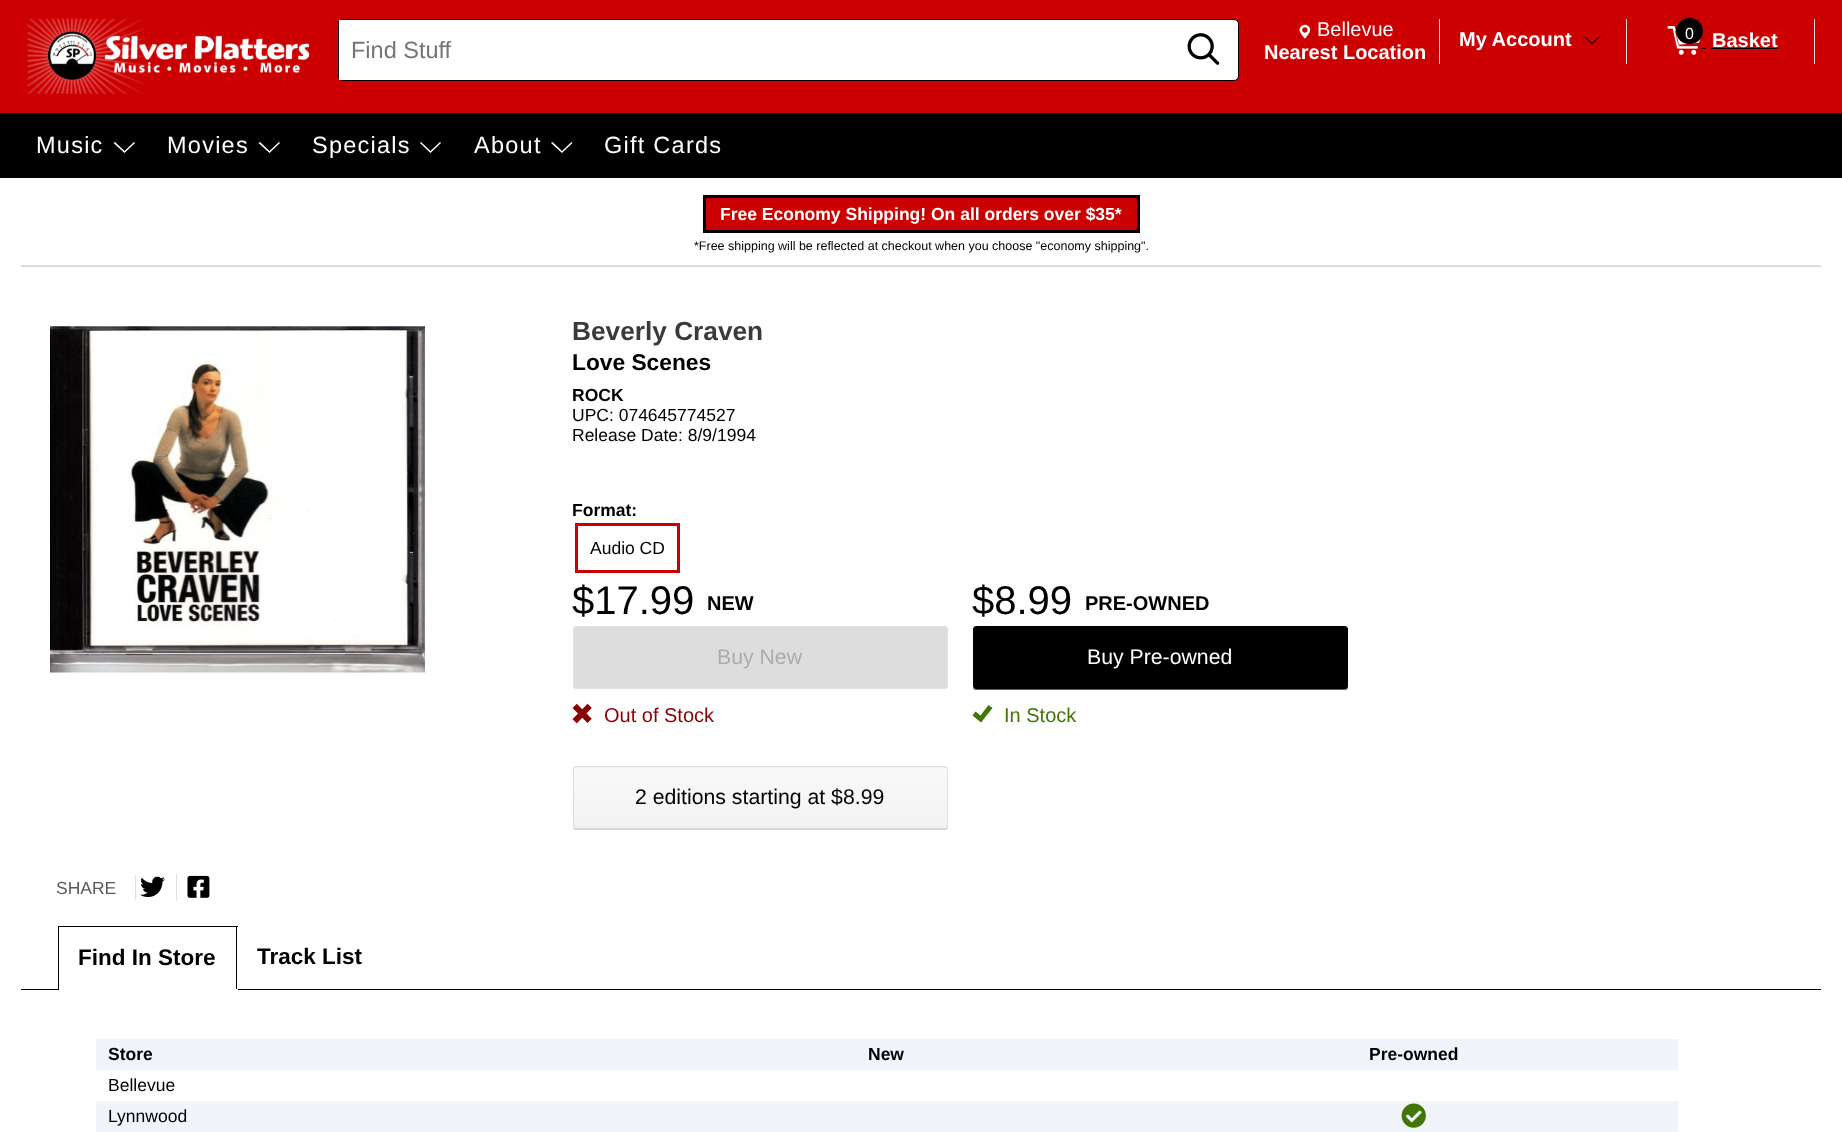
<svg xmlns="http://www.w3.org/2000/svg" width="1842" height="1132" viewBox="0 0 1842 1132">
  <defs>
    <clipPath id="clip1"><rect x="573" y="766" width="375" height="63" rx="3"/></clipPath>
    <linearGradient id="g1" gradientUnits="userSpaceOnUse" x1="760" y1="708" x2="760" y2="768"><stop offset="0" stop-color="#f9f9f9"/><stop offset="0.94" stop-color="#f4f3f3"/><stop offset="1" stop-color="#eee"/></linearGradient>
    <linearGradient id="g2" gradientUnits="userSpaceOnUse" x1="760" y1="768" x2="760" y2="828"><stop offset="0" stop-color="#f9f9f9"/><stop offset="0.94" stop-color="#f4f3f3"/><stop offset="1" stop-color="#eee"/></linearGradient>
  </defs>
  <rect width="100%" height="100%" fill="#fff"/>
  <path d="M0 0h1842v113H0z" fill="#cc0001"/>
  <image x="27" y="18" width="283" height="76" href="img/1.png"/>
  <rect x="338.5" y="19.5" width="900" height="61" rx="4.5" fill="#fff" stroke="#000"/>
  <path d="M339 20h4v60H339z" fill="#fff"/>
  <image x="1187" y="33" width="33" height="32" href="img/2.png"/>
  <path d="M1439 19h1v45H1439z" fill="#e0e0e0"/>
  <image x="1299" y="24" width="12" height="15" href="img/3.png"/>
  <path d="M1626 19h1v45H1626z" fill="#e0e0e0"/>
  <image x="1584" y="36" width="16" height="9" href="img/4.png"/>
  <path d="M1814 19h1v45H1814z" fill="#e0e0e0"/>
  <image x="1667" y="26" width="34" height="29" href="img/5.png"/>
  <rect x="1676" y="18" width="27" height="26" rx="13" fill="#000"/>
  <path d="M1711 48h67v1H1711z" fill="#000"/>
  <path d="M1701 48h5v1H1701z" fill="#000"/>
  <path d="M0 113h1842v65H0z" fill="#000"/>
  <path d="M125.5 152L135 143L134 142L124.5 151L115 142L113.5 143L124.5 153Z" fill="#fff"/>
  <path d="M270.5 152L280 143L279 142L269.5 151L260 142L258.5 143L269.5 153Z" fill="#fff"/>
  <path d="M431.5 152L441 143L440 142L430.5 151L421 142L420 143L430.5 153Z" fill="#fff"/>
  <path d="M563 152L572.5 143L571.5 142L562 151L552.5 142L551 143L562 153Z" fill="#fff"/>
  <path d="M21 265h1800v1H21z" fill="#e0e0e0"/>
  <path d="M704.5 196.5h434v35H704.5z" fill="#cc0001" stroke="#000" stroke-width="3"/>
  <path d="M21 266h1800v1H21z" fill="#d3d3d3"/>
  <image x="50" y="326" width="375" height="347" href="img/6.png"/>
  <path d="M576.5 524.5h102v47H576.5z" fill="none" stroke="#cc0001" stroke-width="3"/>
  <rect x="573.5" y="626.5" width="374" height="62" rx="2.5" fill="#ddd" stroke="#e0e0e0"/>
  <path d="M973 687C973 689 974 690 976 690H1345C1347 690 1348 689 1348 687V631V629V686C1348 687 1346 689 1344 689H976C974 689 974 688 973 687Z" fill="#606060"/>
  <rect x="973.5" y="626.5" width="374" height="62" rx="2.5" fill="#000" stroke="#000"/>
  <image x="572" y="703" width="20" height="21" href="img/7.png"/>
  <path d="M980.5 715.5L988.5 705L992.5 708L981 722.5L972.5 715.5L975.5 711.5Z" fill="#417505"/>
  <rect x="573" y="768" width="375" height="62" rx="3" fill="#cdcdcd" filter="blur(0.5px)"/>
  <g clip-path="url(#clip1)">
    <path d="M573 766h375v2H573z" fill="url(#g1)"/>
    <path d="M573 768h375v60H573z" fill="url(#g2)"/>
  </g>
  <rect x="573.5" y="766.5" width="374" height="62" rx="2.5" fill="none" stroke="#e0e0e0"/>
  <path d="M135 875h1v25H135z" fill="#e0e0e0"/>
  <image x="140" y="876" width="25" height="21" href="img/8.png"/>
  <path d="M176 874h1v27H176z" fill="#e0e0e0"/>
  <image x="187" y="875" width="23" height="23" href="img/9.png"/>
  <path d="M58 926h180v1H58z" fill="#000"/>
  <path d="M21 989h1800v1H21z" fill="#000"/>
  <path d="M236 926h1v64H236z" fill="#000"/>
  <path d="M58 989h180v1H58z" fill="#fff"/>
  <path d="M58 926h1v64H58z" fill="#000"/>
  <path d="M96 1039h1582v31H96z" fill="#f1f5fb"/>
  <path d="M96 1101h1582v31H96z" fill="#f1f5fb"/>
  <image x="1401" y="1103" width="25" height="25" href="img/10.png"/>
  <text x="351" y="58" font-family="Liberation Sans" font-size="23.5" fill="#757575">Find Stuff</text>
  <text x="1317" y="36" font-family="Liberation Sans" font-size="20" fill="#fff">Bellevue</text>
  <g font-family="Liberation Sans" font-size="20" font-weight="bold" fill="#fff">
    <text x="1264" y="59">Nearest Location</text>
    <text x="1459" y="46">My Account</text>
  </g>
  <text x="1685" y="39" font-family="Liberation Sans" font-size="16" fill="#fff">0</text>
  <text x="1712" y="47" font-family="Liberation Sans" font-size="20" font-weight="bold" fill="#fff">Basket</text>
  <g font-family="Liberation Sans" font-size="23.5" letter-spacing="1.25" fill="#fff">
    <text x="36" y="153">Music</text>
    <text x="167" y="153">Movies</text>
    <text x="312" y="153">Specials</text>
    <text x="474" y="153">About</text>
    <text x="604" y="153">Gift Cards</text>
  </g>
  <text x="720" y="220" font-family="Liberation Sans" font-size="17.5" font-weight="bold" fill="#fff">Free Economy Shipping! On all orders over $35*</text>
  <text x="694" y="250" font-family="Liberation Sans" font-size="12.5" fill="#000">*Free shipping will be reflected at checkout when you choose "economy shipping".</text>
  <text x="572" y="340" font-family="Liberation Sans" font-size="26.25" font-weight="bold" fill="#3a3a3a">Beverly Craven</text>
  <text x="572" y="370" font-family="Liberation Sans" font-size="22.75" font-weight="bold" fill="#000">Love Scenes</text>
  <text x="572" y="401" font-family="Liberation Sans" font-size="17.5" font-weight="bold" fill="#000">ROCK</text>
  <g font-family="Liberation Sans" font-size="17.5" fill="#000">
    <text x="572" y="421">UPC: 074645774527</text>
    <text x="572" y="441">Release Date: 8/9/1994</text>
  </g>
  <text x="572" y="516" font-family="Liberation Sans" font-size="17.5" font-weight="bold" fill="#000">Format:</text>
  <text x="590" y="554" font-family="Liberation Sans" font-size="17.5" fill="#000">Audio CD</text>
  <text x="572" y="614" font-family="Liberation Sans" font-size="40" fill="#000">$17.99</text>
  <text x="707" y="610" font-family="Liberation Sans" font-size="20" font-weight="bold" fill="#000">NEW</text>
  <text x="972" y="614" font-family="Liberation Sans" font-size="40" fill="#000">$8.99</text>
  <text x="1085" y="610" font-family="Liberation Sans" font-size="20" font-weight="bold" fill="#000">PRE-OWNED</text>
  <text x="717" y="664" font-family="Liberation Sans" font-size="21.25" fill="#a8adae">Buy New</text>
  <text x="1087" y="664" font-family="Liberation Sans" font-size="21.25" fill="#fff">Buy Pre-owned</text>
  <text x="604" y="722" font-family="Liberation Sans" font-size="20" fill="#8b0000">Out of Stock</text>
  <text x="1004" y="722" font-family="Liberation Sans" font-size="20" fill="#417505">In Stock</text>
  <text x="635" y="804" font-family="Liberation Sans" font-size="21.25" fill="#000">2 editions starting at $8.99</text>
  <text x="56" y="894" font-family="Liberation Sans" font-size="17.5" fill="#595959">SHARE</text>
  <g font-family="Liberation Sans" font-size="22.5" font-weight="bold" fill="#000">
    <text x="78" y="965">Find In Store</text>
    <text x="257" y="964">Track List</text>
  </g>
  <g font-family="Liberation Sans" font-size="17.5" font-weight="bold" fill="#000">
    <text x="108" y="1060">Store</text>
    <text x="868" y="1060">New</text>
    <text x="1369" y="1060">Pre-owned</text>
  </g>
  <g font-family="Liberation Sans" font-size="17.5" fill="#000">
    <text x="108" y="1091">Bellevue</text>
    <text x="108" y="1122">Lynnwood</text>
  </g>
</svg>
